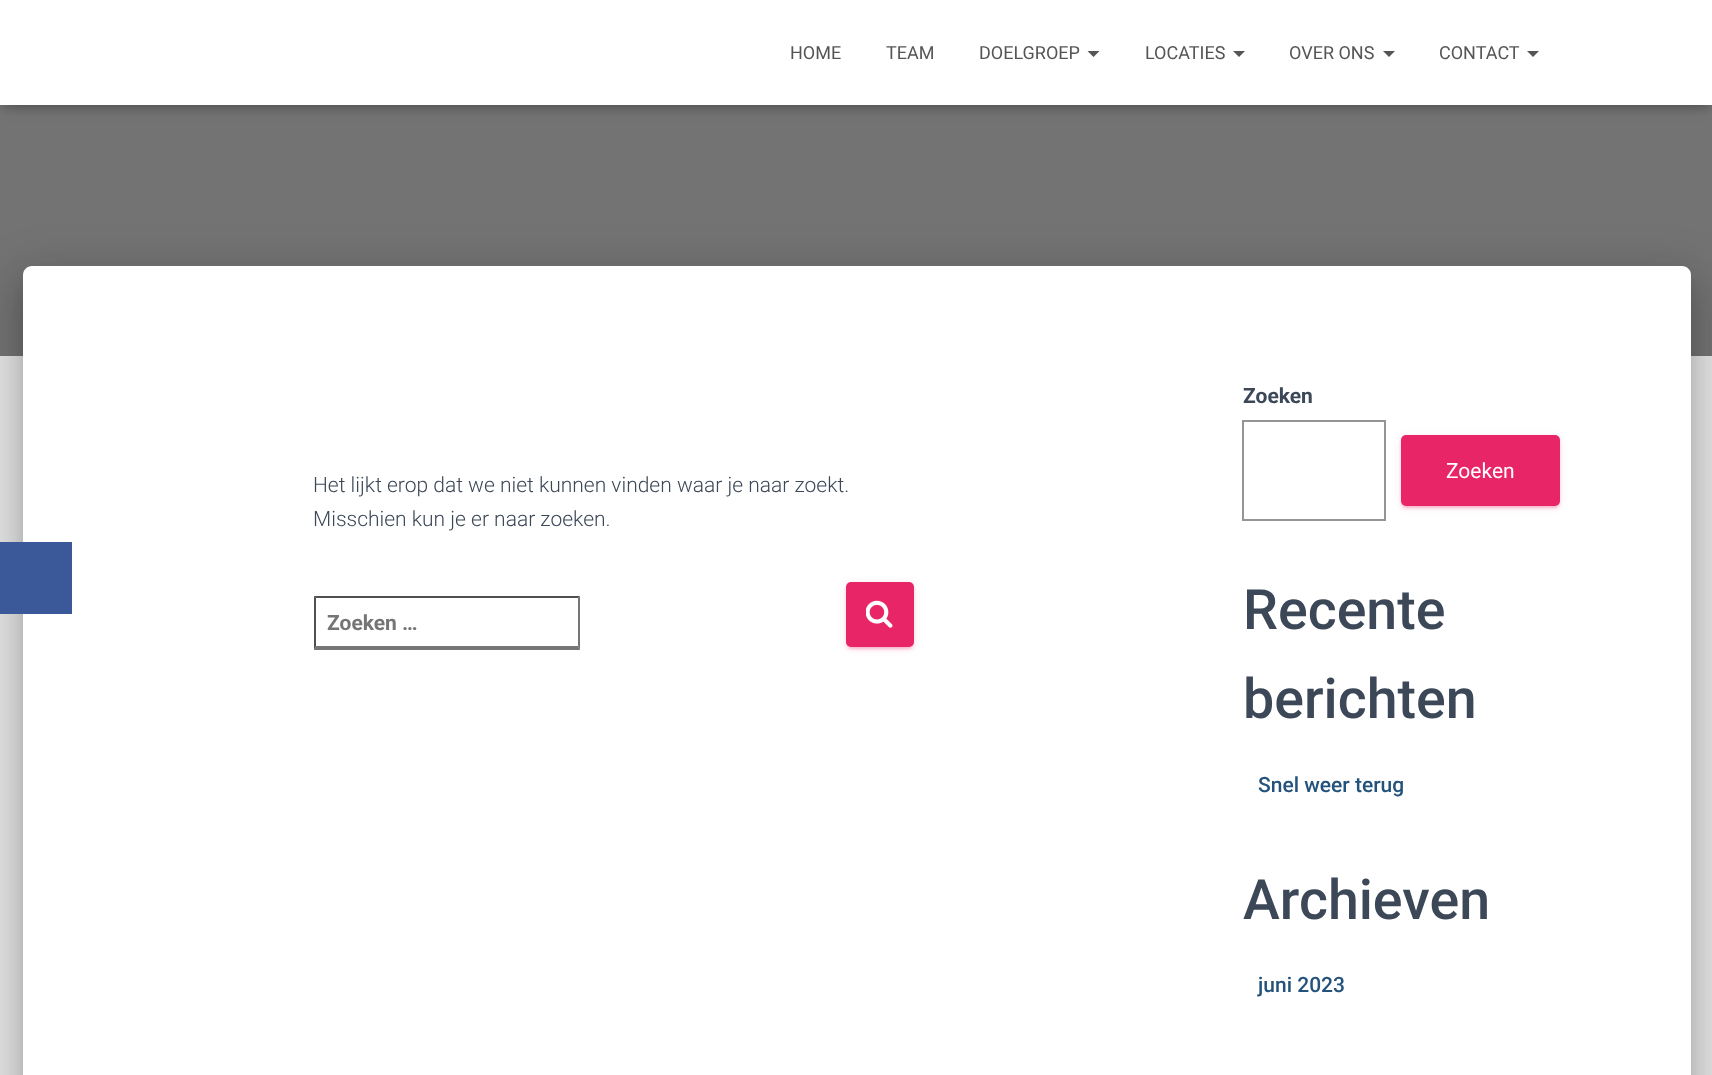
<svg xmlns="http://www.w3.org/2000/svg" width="1712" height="1075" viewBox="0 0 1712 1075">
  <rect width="100%" height="100%" fill="#e5e5e5"/>
  <path d="M0 105h1712v251H0z" fill="#737373"/>
  <path d="M3 9h1707v99H3z" fill="#0000001a" filter="blur(4px)"/>
  <path d="M0 2h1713v105H0z" fill="#0000001f" filter="blur(7.5px)"/>
  <path d="M9 11h1695v87H9z" fill="#0000006b" filter="blur(7.5px)"/>
  <path d="M0 0h1712v105H0z" fill="#fff"/>
  <path d="M1087.5 51H1099.5L1093.5 57Z" fill="#555"/>
  <path d="M1233 51H1245L1239 57Z" fill="#555"/>
  <path d="M1383 51H1395L1389 57Z" fill="#555"/>
  <path d="M1527 51H1539L1533 57Z" fill="#555"/>
  <rect x="30" y="285" width="1653" height="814" rx="1.5" fill="#00000033" filter="blur(7.5px)"/>
  <rect x="15" y="267" width="1683" height="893" rx="17" fill="#0000001f" filter="blur(22.5px)"/>
  <rect x="20" y="287" width="1674" height="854" rx="12" fill="#00000024" filter="blur(18px)"/>
  <path d="M32 266H1682C1687 266 1691 270 1691 275V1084H23V275C23 270 27 266 32 266Z" fill="#fff"/>
  <path d="M0 542h72v72H0z" fill="#3b5998"/>
  <path d="M314 596H580L578 598H316Z" fill="#4f4f4f"/>
  <path d="M580 596V650L578 646V598Z" fill="#767676"/>
  <path d="M580 650H314L316 646H578Z" fill="#767676"/>
  <path d="M314 650V596L316 598V646Z" fill="#4f4f4f"/>
  <rect x="846" y="584" width="68" height="64" rx="5" fill="#e825661f" filter="blur(4px)"/>
  <rect x="849" y="590" width="62" height="58" rx="1.5" fill="#e8256633" filter="blur(1px)"/>
  <rect x="846" y="585" width="68" height="65" rx="5" fill="#e8256624" filter="blur(1.5px)"/>
  <rect x="846" y="582" width="68" height="65" rx="5" fill="#e82566"/>
  <image x="866" y="600" width="27" height="28" href="img/1.png"/>
  <path d="M1243 421h142v99H1243z" fill="none" stroke="#949494" stroke-width="2"/>
  <rect x="1401" y="437" width="159" height="70" rx="5" fill="#e825661f" filter="blur(4px)"/>
  <rect x="1404" y="443" width="153" height="64" rx="1.5" fill="#e8256633" filter="blur(1px)"/>
  <rect x="1401" y="438" width="159" height="71" rx="5" fill="#e8256624" filter="blur(1.5px)"/>
  <rect x="1401" y="435" width="159" height="71" rx="5" fill="#e82566"/>
  <g font-family="Roboto" font-size="18" fill="#555">
    <text x="790" y="59">HOME</text>
    <text x="886" y="59">TEAM</text>
    <text x="979" y="59">DOELGROEP</text>
    <text x="1145" y="59">LOCATIES</text>
    <text x="1289" y="59">OVER ONS</text>
    <text x="1439" y="59">CONTACT</text>
  </g>
  <g font-family="Roboto" font-size="21" font-weight="300" fill="#3c4858">
    <text x="313" y="492">Het lijkt erop dat we niet kunnen vinden waar je naar zoekt.</text>
    <text x="313" y="526">Misschien kun je er naar zoeken.</text>
  </g>
  <text x="327" y="630" font-family="Roboto" font-size="21" font-weight="bold" fill="#757575">Zoeken …</text>
  <text x="1243" y="403" font-family="Roboto" font-size="21" font-weight="bold" fill="#3c4858">Zoeken</text>
  <text x="1446" y="478" font-family="Roboto" font-size="21" fill="#fff">Zoeken</text>
  <g font-family="Roboto" font-size="55.5" font-weight="500" fill="#3c4858">
    <text x="1243" y="629">Recente</text>
    <text x="1243" y="718">berichten</text>
  </g>
  <text x="1258" y="792" font-family="Roboto" font-size="21" font-weight="500" fill="#23527c">Snel weer terug</text>
  <text x="1243" y="919" font-family="Roboto" font-size="55.5" font-weight="500" fill="#3c4858">Archieven</text>
  <text x="1258" y="992" font-family="Roboto" font-size="21" font-weight="500" fill="#23527c">juni 2023</text>
</svg>
